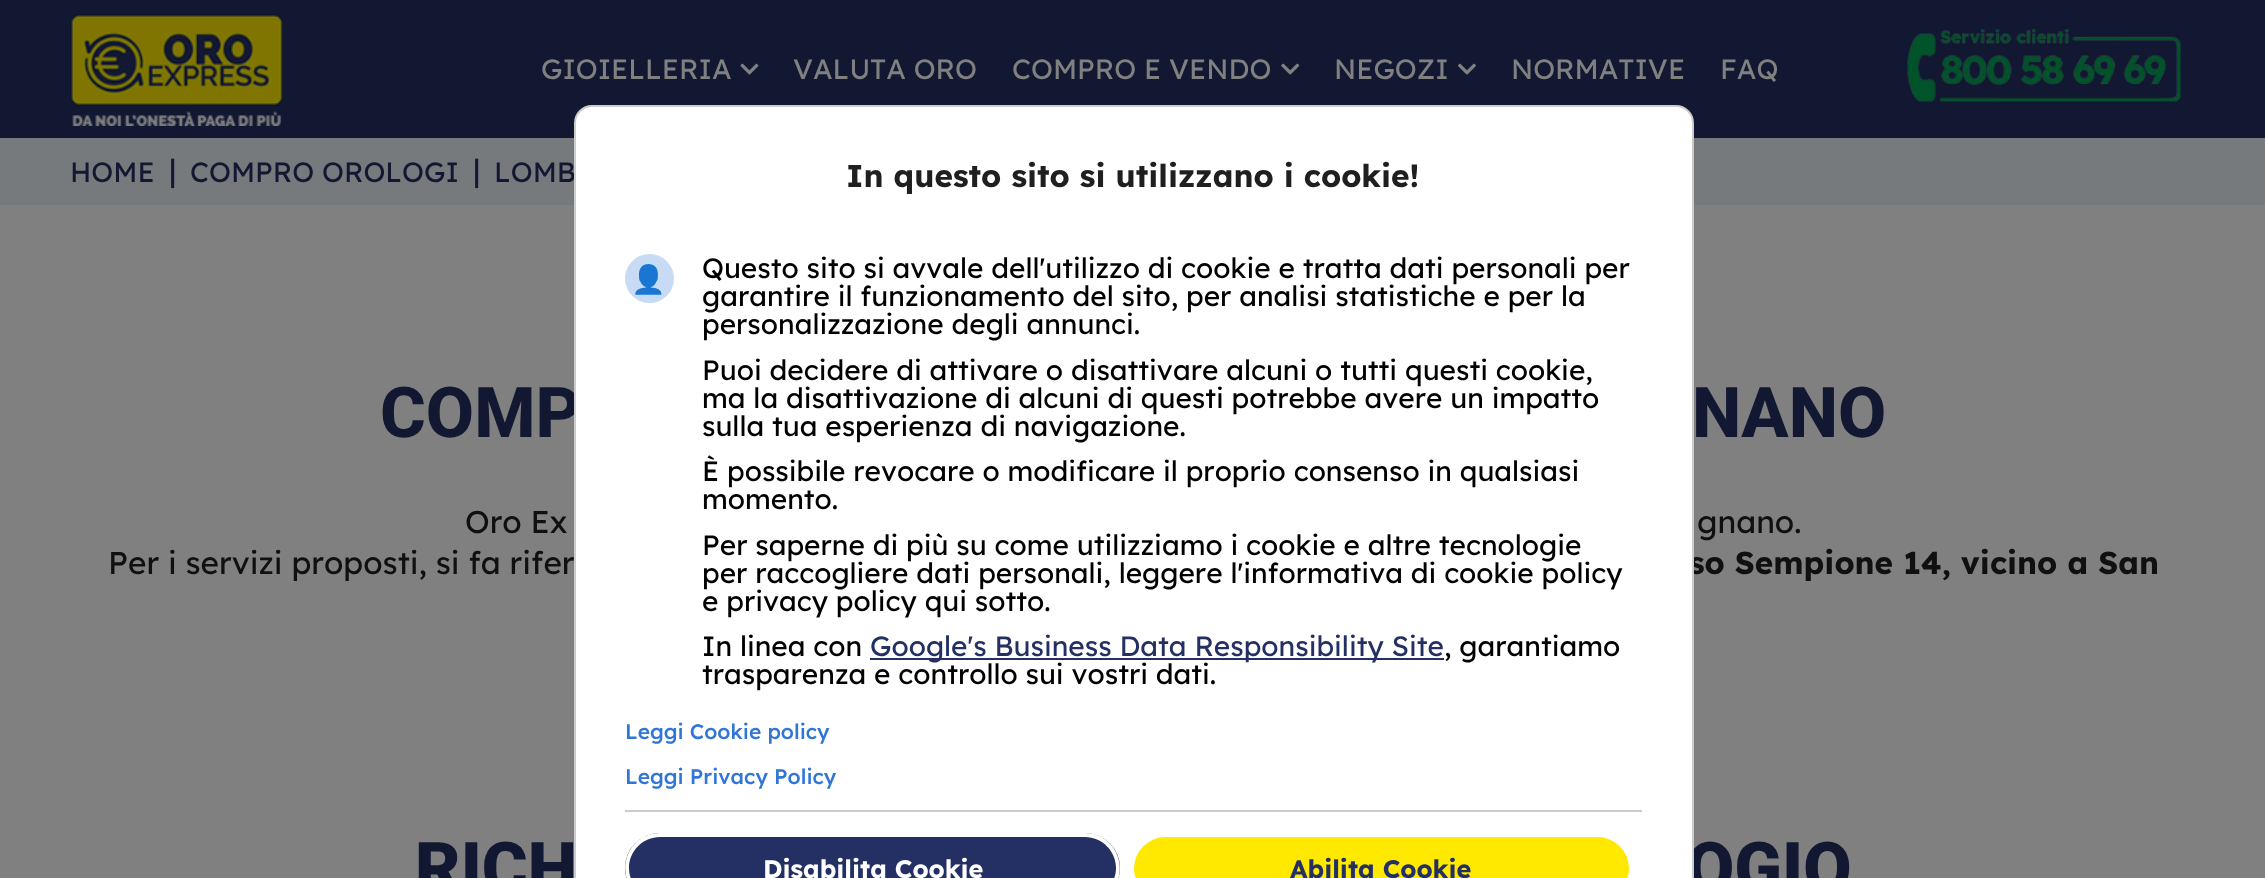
<svg xmlns="http://www.w3.org/2000/svg" width="2265" height="878" viewBox="0 0 2265 878">
  <style>*{font-kerning:none!important;font-variant-ligatures:none!important}</style>
  <rect width="100%" height="100%" fill="#808080"/>
  <path d="M0 0h2265v138H0z" fill="#121832"/>
  <image x="70" y="14" width="213" height="112" href="img/1.png"/>
  <image x="740" y="63" width="19" height="12" href="img/2.png"/>
  <image x="1281" y="63" width="19" height="12" href="img/3.png"/>
  <image x="1458" y="63" width="18" height="12" href="img/4.png"/>
  <image x="1907" y="29" width="274" height="73" href="img/5.png"/>
  <path d="M0 138h2265v67H0z" fill="#777a7d"/>
  <g font-family="Lexend Deca" font-size="28" fill="#808080">
    <text x="541" y="79">GIOIELLERIA</text>
    <text x="793" y="79">VALUTA ORO</text>
    <text x="1012" y="79">COMPRO E VENDO</text>
    <text x="1334" y="79">NEGOZI</text>
    <text x="1511" y="79">NORMATIVE</text>
    <text x="1720" y="79">FAQ</text>
  </g>
  <text x="70" y="182" font-family="Lexend Deca" font-size="28" fill="#121832">HOME</text>
  <text x="169" y="182" font-family="Lexend Deca" font-size="31.5" fill="#121832">|</text>
  <text x="190" y="182" font-family="Lexend Deca" font-size="28" fill="#121832">COMPRO OROLOGI</text>
  <text x="473" y="182" font-family="Lexend Deca" font-size="31.5" fill="#121832">|</text>
  <text x="494" y="182" font-family="Lexend Deca" font-size="28" fill="#121832">LOMB</text>
  <g font-family="Roboto" font-size="70" font-weight="800" fill="#121832">
    <text x="380" y="437">COMP</text>
    <text x="1692" y="437">NANO</text>
  </g>
  <g font-family="Lexend Deca" font-size="31.5" fill="#101010">
    <text x="465" y="533">Oro Ex</text>
    <text x="1697" y="533">gnano.</text>
    <text x="108" y="574">Per i servizi proposti, si fa rifer</text>
  </g>
  <text x="1689" y="574" font-family="Lexend Deca" font-size="31.5" font-weight="bold" fill="#101010">so Sempione 14, vicino a San</text>
  <g font-family="Roboto" font-size="70" font-weight="900" fill="#121832">
    <text x="415" y="892">RICH</text>
    <text x="1686" y="892">OGIO</text>
  </g>
  <rect x="575" y="106" width="1118" height="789" rx="17" fill="#fff" stroke="#ccc" stroke-width="2"/>
  <text x="846" y="187" font-family="Lexend Deca" font-size="31.5" font-weight="bold" fill="#1f1f1f">In questo sito si utilizzano i cookie!</text>
  <circle cx="649.5" cy="278.5" r="24.5" fill="#c8dbf4"/>
  <text x="631" y="289" font-family="Noto Color Emoji" font-size="28" fill="#000">👤</text>
  <g font-family="Lexend Deca" font-size="28" fill="#000">
    <text x="702" y="278">Questo sito si avvale dell'utilizzo di cookie e tratta dati personali per</text>
    <text x="702" y="306">garantire il funzionamento del sito, per analisi statistiche e per la</text>
    <text x="702" y="334">personalizzazione degli annunci.</text>
    <text x="702" y="380">Puoi decidere di attivare o disattivare alcuni o tutti questi cookie,</text>
    <text x="702" y="408">ma la disattivazione di alcuni di questi potrebbe avere un impatto</text>
    <text x="702" y="436">sulla tua esperienza di navigazione.</text>
    <text x="702" y="481">È possibile revocare o modificare il proprio consenso in qualsiasi</text>
    <text x="702" y="509">momento.</text>
    <text x="702" y="555">Per saperne di più su come utilizziamo i cookie e altre tecnologie</text>
    <text x="702" y="583">per raccogliere dati personali, leggere l'informativa di cookie policy</text>
    <text x="702" y="611">e privacy policy qui sotto.</text>
    <text x="702" y="656">In linea con</text>
  </g>
  <path d="M870 658h574v2H870z" fill="#243064"/>
  <text x="870" y="656" font-family="Lexend Deca" font-size="28" fill="#243064">Google's Business Data Responsibility Site</text>
  <g font-family="Lexend Deca" font-size="28" fill="#000">
    <text x="1444" y="656">, garantiamo</text>
    <text x="702" y="684">trasparenza e controllo sui vostri dati.</text>
  </g>
  <g font-family="Lexend Deca" font-size="21" font-weight="500" fill="#3076d7">
    <text x="625" y="739">Leggi Cookie policy</text>
    <text x="625" y="784">Leggi Privacy Policy</text>
  </g>
  <path d="M625 810h1017v2H625z" fill="#ccc"/>
  <rect x="625" y="833" width="495" height="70" rx="35" fill="#243064"/>
  <path d="M660 833C628 833 613 873 637 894H643C635 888 629 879 629 868C629 851 643 837 660 837H1085C1102 837 1116 851 1116 868C1116 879 1110 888 1102 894H1108C1132 873 1117 833 1085 833Z" fill="#fff"/>
  <text x="763" y="878" font-family="Lexend Deca" font-size="25.25" font-weight="bold" fill="#fff">Disabilita Cookie</text>
  <rect x="1134" y="837" width="495" height="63" rx="31.5" fill="#ffe900"/>
  <text x="1290" y="878" font-family="Lexend Deca" font-size="25.25" font-weight="bold" fill="#243064">Abilita Cookie</text>
</svg>
